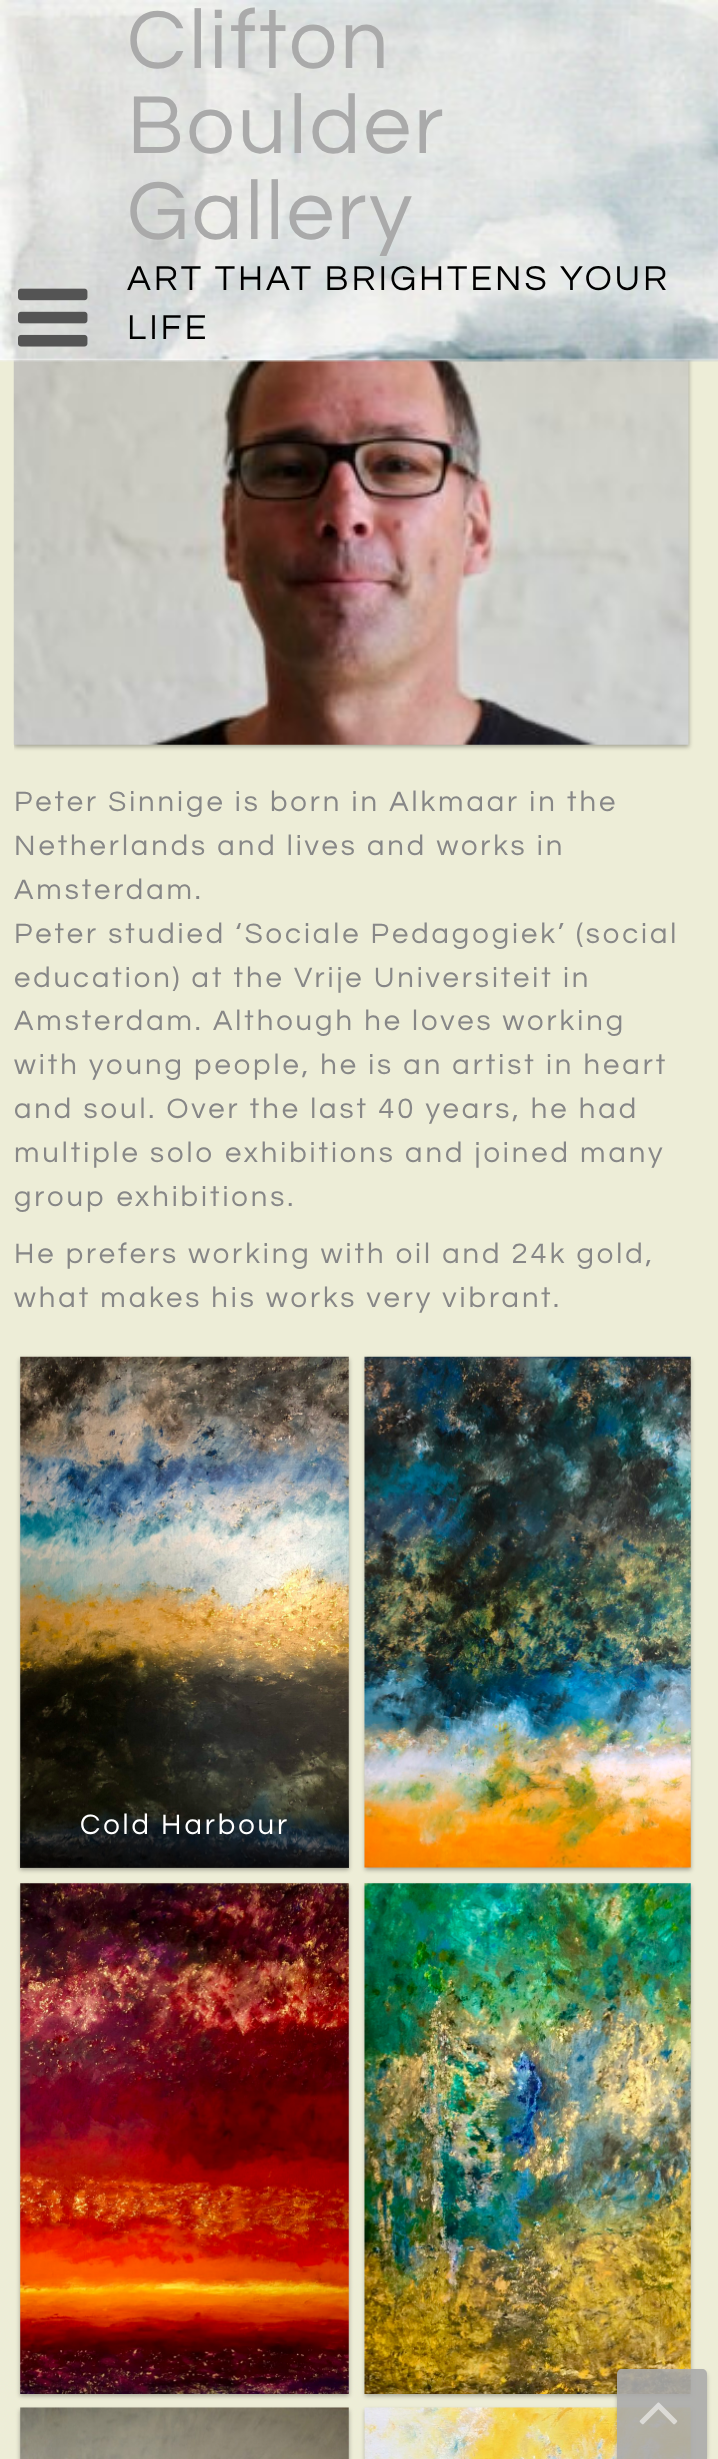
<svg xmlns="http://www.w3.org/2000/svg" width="718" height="2459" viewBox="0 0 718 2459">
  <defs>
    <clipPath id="clip1"><path d="M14 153h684v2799H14z"/></clipPath>
    <linearGradient id="g1" gradientUnits="userSpaceOnUse" x1="185" y1="1868" x2="185" y2="1802"><stop offset="0" stop-color="#000" stop-opacity="0.7"/><stop offset="0.7" stop-color="#000" stop-opacity="0.3"/><stop offset="1" stop-color="#000" stop-opacity="0"/></linearGradient>
    <clipPath id="clip2"><path d="M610 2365H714V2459H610ZM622 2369H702C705 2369 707 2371 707 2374V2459H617V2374C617 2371 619 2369 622 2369Z" clip-rule="evenodd"/></clipPath>
  </defs>
  <rect width="100%" height="100%" fill="#ededd7"/>
  <g clip-path="url(#clip1)">
    <path d="M14 288h675v459H14z" fill="#0000004d" filter="blur(2px)"/>
  </g>
  <image x="13" y="360" width="676" height="385" href="img/3.png"/>
  <path d="M2 5h716v355H2z" fill="#eee" filter="blur(1px)"/>
  <path d="M0 0h718v360H0z" fill="#fff"/>
  <image x="0" y="0" width="718" height="362" href="img/1.png"/>
  <image x="18" y="288" width="70" height="59" href="img/2.png"/>
  <path d="M20 1359h329v511H20z" fill="#0000004d" filter="blur(2px)"/>
  <image x="20" y="1356" width="329" height="512" href="img/4.png"/>
  <path d="M20 1804h329v64H20z" fill="url(#g1)"/>
  <path d="M365 1359h326v511H365z" fill="#0000004d" filter="blur(2px)"/>
  <image x="364" y="1356" width="327" height="512" href="img/5.png"/>
  <path d="M20 1886h329v510H20z" fill="#0000004d" filter="blur(2px)"/>
  <image x="20" y="1883" width="329" height="511" href="img/6.png"/>
  <path d="M365 1886h326v510H365z" fill="#0000004d" filter="blur(2px)"/>
  <image x="364" y="1883" width="327" height="511" href="img/7.png"/>
  <path d="M20 2410h329v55H20z" fill="#0000004d" filter="blur(2px)"/>
  <image x="20" y="2407" width="329" height="52" href="img/8.png"/>
  <path d="M365 2410h326v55H365z" fill="#0000004d" filter="blur(2px)"/>
  <image x="364" y="2407" width="327" height="52" href="img/9.png"/>
  <g clip-path="url(#clip2)">
    <rect x="617" y="2372" width="90" height="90" rx="5" fill="#0000003b" filter="blur(2px)"/>
  </g>
  <path d="M622 2369H702C705 2369 707 2371 707 2374V2459H617V2374C617 2371 619 2369 622 2369Z" fill="#aaaaaae6"/>
  <image x="639" y="2402" width="39" height="23" href="img/10.png"/>
  <g font-family="Questrial" font-size="85.5" letter-spacing="2.95" fill="#aaa">
    <text x="127" y="68">Clifton</text>
    <text x="127" y="153">Boulder</text>
    <text x="127" y="239">Gallery</text>
  </g>
  <g font-family="Questrial" font-size="36" letter-spacing="2.95" fill="#000">
    <text x="127" y="290">ART THAT BRIGHTENS YOUR</text>
    <text x="127" y="339">LIFE</text>
  </g>
  <g font-family="Questrial" font-size="29.25" letter-spacing="2.95" fill="#878787">
    <text x="14" y="811">Peter Sinnige is born in Alkmaar in the</text>
    <text x="14" y="855">Netherlands and lives and works in</text>
    <text x="14" y="899">Amsterdam.</text>
    <text x="14" y="943">Peter studied ‘Sociale Pedagogiek’ (social</text>
    <text x="14" y="987">education) at the Vrije Universiteit in</text>
    <text x="14" y="1030">Amsterdam. Although he loves working</text>
    <text x="14" y="1074">with young people, he is an artist in heart</text>
    <text x="14" y="1118">and soul. Over the last 40 years, he had</text>
    <text x="14" y="1162">multiple solo exhibitions and joined many</text>
    <text x="14" y="1206">group exhibitions.</text>
    <text x="14" y="1263">He prefers working with oil and 24k gold,</text>
    <text x="14" y="1307">what makes his works very vibrant.</text>
  </g>
  <text x="80" y="1834" font-family="Questrial" font-size="29.25" letter-spacing="2.95" fill="#fff">Cold Harbour</text>
</svg>
